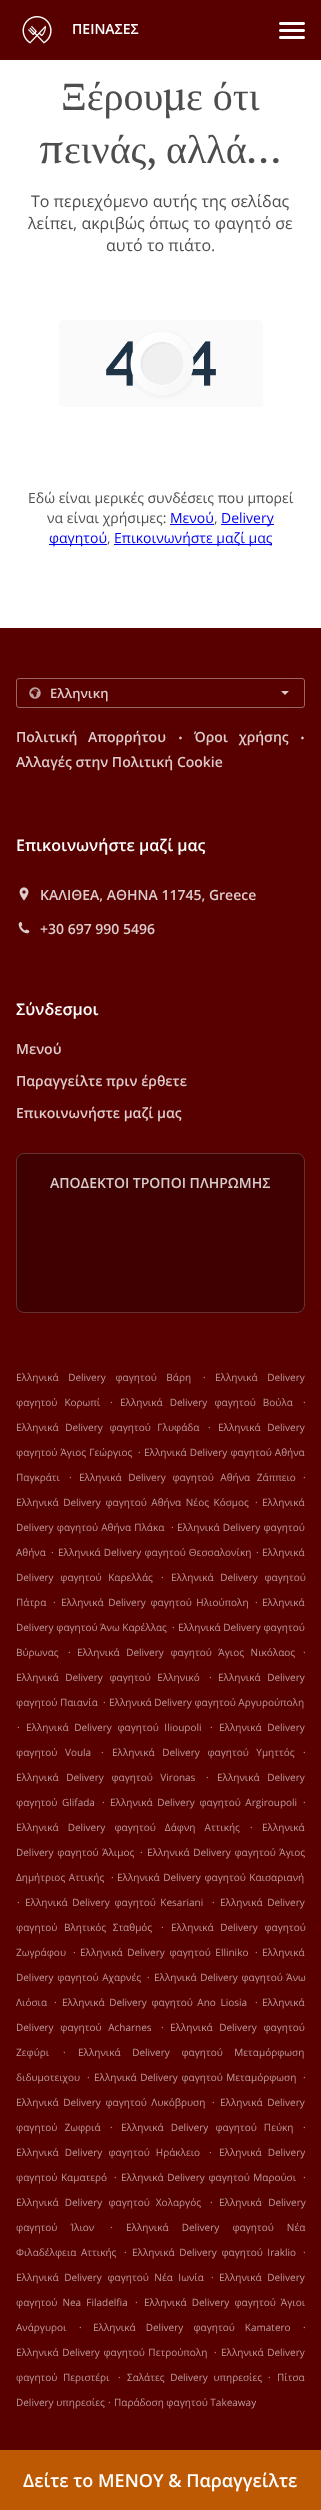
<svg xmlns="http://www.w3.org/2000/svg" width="321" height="2510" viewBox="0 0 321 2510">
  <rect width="100%" height="100%" fill="#fff"/>
  <path d="M0 0h321v60H0z" fill="#580000"/>
  <image x="22" y="16" width="30" height="28" href="img/1.png"/>
  <image x="279" y="22" width="26" height="17" href="img/2.png"/>
  <image x="59" y="320" width="204" height="87" href="img/3.png"/>
  <path d="M170 524h44v1H170z" fill="#00e"/>
  <path d="M221 524h53v1H221z" fill="#00e"/>
  <path d="M49 544h58v1H49z" fill="#00e"/>
  <path d="M114 544h158v1H114z" fill="#00e"/>
  <path d="M0 628h321v1822H0z" fill="#580000"/>
  <image x="29" y="687" width="12" height="12" href="img/4.png"/>
  <rect x="16.5" y="678.5" width="288" height="29" rx="2.5" fill="none" stroke="#9b6666"/>
  <path d="M281 691H289L285 695Z" fill="#decccc"/>
  <image x="19" y="887" width="10" height="14" href="img/5.png"/>
  <image x="18" y="922" width="12" height="12" href="img/6.png"/>
  <rect x="16" y="1153" width="289" height="160" rx="8" fill="#3e0000"/>
  <rect x="16.5" y="1153.5" width="288" height="159" rx="7.5" fill="none" stroke="#ffffff33"/>
  <path d="M0 2450h321v60H0z" fill="#bd5902"/>
  <text x="72" y="34" font-family="Open Sans" font-size="14" font-weight="600" fill="#fff">ΠΕΙΝΑΣΕΣ</text>
  <text x="61" y="110" font-family="Liberation Serif" font-size="40" fill="#4d4d4d">Ξέρου</text>
  <text x="163" y="110" font-family="PT Serif" font-size="40" fill="#4d4d4d">μ</text>
  <text x="186" y="110" font-family="Liberation Serif" font-size="40" fill="#4d4d4d">ε ότι</text>
  <text x="39" y="163" font-family="PT Serif" font-size="40" fill="#4d4d4d">π</text>
  <text x="64" y="163" font-family="Liberation Serif" font-size="40" fill="#4d4d4d">εινάς</text>
  <text x="146" y="163" font-family="PT Serif" font-size="40" fill="#4d4d4d">,</text>
  <text x="166" y="163" font-family="Liberation Serif" font-size="40" fill="#4d4d4d">αλλά</text>
  <text x="246" y="163" font-family="PT Serif" font-size="40" fill="#4d4d4d">...</text>
  <g font-family="Open Sans" font-size="16" fill="#4d4d4d">
    <text x="31" y="207">Το περιεχόμενο αυτής της σελίδας</text>
    <text x="28" y="229">λείπει, ακριβώς όπως το φαγητό σε</text>
    <text x="106" y="251">αυτό το πιάτο.</text>
  </g>
  <g font-family="Open Sans" font-size="14" fill="#4d4d4d">
    <text x="28" y="503">Εδώ είναι μερικές συνδέσεις που μπορεί</text>
    <text x="47" y="523">να είναι χρήσιμες:</text>
  </g>
  <text x="170" y="523" font-family="Open Sans" font-size="14" fill="#00e">Μενού</text>
  <text x="214" y="523" font-family="Open Sans" font-size="14" fill="#4d4d4d">,</text>
  <g font-family="Open Sans" font-size="14" fill="#00e">
    <text x="221" y="523">Delivery</text>
    <text x="49" y="543">φαγητού</text>
  </g>
  <text x="107" y="543" font-family="Open Sans" font-size="14" fill="#4d4d4d">,</text>
  <text x="114" y="543" font-family="Open Sans" font-size="14" fill="#00e">Επικοινωνήστε μαζί μας</text>
  <text x="50" y="698" font-family="Open Sans" font-size="13" font-weight="600" fill="#decccc">Ελληνικη</text>
  <text x="16" y="742" word-spacing="7" font-family="Open Sans" font-size="14" font-weight="600" fill="#decccc">Πολιτική Απορρήτου</text>
  <text x="178" y="739" font-family="Open Sans" font-size="18" font-weight="600" fill="#decccc">.</text>
  <text x="194" y="742" word-spacing="7" font-family="Open Sans" font-size="14" font-weight="600" fill="#decccc">Όροι χρήσης</text>
  <text x="300" y="739" font-family="Open Sans" font-size="18" font-weight="600" fill="#decccc">.</text>
  <text x="16" y="767" font-family="Open Sans" font-size="14" font-weight="600" fill="#decccc">Αλλαγές στην Πολιτική Cookie</text>
  <text x="16" y="851" font-family="Open Sans" font-size="16" font-weight="600" fill="#fff">Επικοινωνήστε μαζί μας</text>
  <g font-family="Open Sans" font-size="14" font-weight="600" fill="#decccc">
    <text x="40" y="900">ΚΑΛΙΘΕΑ, ΑΘΗΝΑ 11745, Greece</text>
    <text x="40" y="934">+30 697 990 5496</text>
  </g>
  <text x="16" y="1015" font-family="Open Sans" font-size="16" font-weight="600" fill="#fff">Σύνδεσμοι</text>
  <g font-family="Open Sans" font-size="14" font-weight="600" fill="#decccc">
    <text x="16" y="1054">Μενού</text>
    <text x="16" y="1086">Παραγγείλτε πριν έρθετε</text>
    <text x="16" y="1118">Επικοινωνήστε μαζί μας</text>
  </g>
  <text x="50" y="1188" font-family="Open Sans" font-size="14" font-weight="600" fill="#d8cccc">ΑΠΟΔΕΚΤΟΙ ΤΡΟΠΟΙ ΠΛΗΡΩΜΗΣ</text>
  <g font-family="Open Sans" font-size="10" fill="#bc9999">
    <text x="16" y="1381" word-spacing="7">Ελληνικά Delivery φαγητού Βάρη</text>
    <text x="203" y="1378">.</text>
    <text x="215" y="1381" word-spacing="7">Ελληνικά Delivery</text>
    <text x="16" y="1406" word-spacing="4.5">φαγητού Κορωπί</text>
    <text x="110" y="1403">.</text>
    <text x="120" y="1406" word-spacing="4.5">Ελληνικά Delivery φαγητού Βούλα</text>
    <text x="303" y="1403">.</text>
    <text x="16" y="1431" word-spacing="4">Ελληνικά Delivery φαγητού Γλυφάδα</text>
    <text x="208" y="1428">.</text>
    <text x="218" y="1431" word-spacing="4">Ελληνικά Delivery</text>
    <text x="16" y="1456" word-spacing="0.5">φαγητού Άγιος Γεώργιος</text>
    <text x="138" y="1453">.</text>
    <text x="144" y="1456" word-spacing="0.5">Ελληνικά Delivery φαγητού Αθήνα</text>
    <text x="16" y="1481">Παγκράτι</text>
    <text x="69" y="1478">.</text>
    <text x="79" y="1481" word-spacing="4">Ελληνικά Delivery φαγητού Αθήνα Ζάππειο</text>
    <text x="303" y="1478">.</text>
    <text x="16" y="1506" word-spacing="2">Ελληνικά Delivery φαγητού Αθήνα Νέος Κόσμος</text>
    <text x="255" y="1503">.</text>
    <text x="262" y="1506">Ελληνικά</text>
    <text x="16" y="1531" word-spacing="0.5">Delivery φαγητού Αθήνα Πλάκα</text>
    <text x="171" y="1528">.</text>
    <text x="177" y="1531" word-spacing="0.5">Ελληνικά Delivery φαγητού</text>
    <text x="16" y="1556">Αθήνα</text>
    <text x="51" y="1553">.</text>
    <text x="58" y="1556" word-spacing="0.5">Ελληνικά Delivery φαγητού Θεσσαλονίκη</text>
    <text x="256" y="1553">.</text>
    <text x="262" y="1556">Ελληνικά</text>
    <text x="16" y="1581" word-spacing="4">Delivery φαγητού Καρελλάς</text>
    <text x="161" y="1578">.</text>
    <text x="171" y="1581" word-spacing="4">Ελληνικά Delivery φαγητού</text>
    <text x="16" y="1606">Πάτρα</text>
    <text x="53" y="1603">.</text>
    <text x="61" y="1606" word-spacing="2">Ελληνικά Delivery φαγητού Ηλιούπολη</text>
    <text x="255" y="1603">.</text>
    <text x="262" y="1606">Ελληνικά</text>
    <text x="16" y="1631">Delivery φαγητού Άνω Καρέλλας</text>
    <text x="172" y="1628">.</text>
    <text x="178" y="1631">Ελληνικά Delivery φαγητού</text>
    <text x="16" y="1656">Βύρωνας</text>
    <text x="68" y="1653">.</text>
    <text x="77" y="1656" word-spacing="4">Ελληνικά Delivery φαγητού Άγιος Νικόλαος</text>
    <text x="303" y="1653">.</text>
    <text x="16" y="1681" word-spacing="4">Ελληνικά Delivery φαγητού Ελληνικό</text>
    <text x="209" y="1678">.</text>
    <text x="218" y="1681" word-spacing="4">Ελληνικά Delivery</text>
    <text x="16" y="1706">φαγητού Παιανία</text>
    <text x="103" y="1703">.</text>
    <text x="109" y="1706">Ελληνικά Delivery φαγητού Αργυρούπολη</text>
    <text x="17" y="1728">.</text>
    <text x="26" y="1731" word-spacing="3">Ελληνικά Delivery φαγητού Ilioupoli</text>
    <text x="210" y="1728">.</text>
    <text x="219" y="1731" word-spacing="3">Ελληνικά Delivery</text>
    <text x="16" y="1756" word-spacing="5">φαγητού Voula</text>
    <text x="101" y="1753">.</text>
    <text x="112" y="1756" word-spacing="5">Ελληνικά Delivery φαγητού Υμηττός</text>
    <text x="303" y="1753">.</text>
    <text x="16" y="1781" word-spacing="5">Ελληνικά Delivery φαγητού Vironas</text>
    <text x="206" y="1778">.</text>
    <text x="217" y="1781" word-spacing="5">Ελληνικά Delivery</text>
    <text x="16" y="1806" word-spacing="2">φαγητού Glifada</text>
    <text x="102" y="1803">.</text>
    <text x="110" y="1806" word-spacing="2">Ελληνικά Delivery φαγητού Argiroupoli</text>
    <text x="303" y="1803">.</text>
    <text x="16" y="1831" word-spacing="6.5">Ελληνικά Delivery φαγητού Δάφνη Αττικής</text>
    <text x="250" y="1828">.</text>
    <text x="262" y="1831">Ελληνικά</text>
    <text x="16" y="1856" word-spacing="1">Delivery φαγητού Άλιμος</text>
    <text x="140" y="1853">.</text>
    <text x="147" y="1856" word-spacing="1">Ελληνικά Delivery φαγητού Άγιος</text>
    <text x="16" y="1881" word-spacing="1">Δημήτριος Αττικής</text>
    <text x="111" y="1878">.</text>
    <text x="117" y="1881" word-spacing="1">Ελληνικά Delivery φαγητού Καισαριανή</text>
    <text x="17" y="1903">.</text>
    <text x="25" y="1906" word-spacing="2">Ελληνικά Delivery φαγητού Kesariani</text>
    <text x="212" y="1903">.</text>
    <text x="220" y="1906" word-spacing="2">Ελληνικά Delivery</text>
    <text x="16" y="1931" word-spacing="4">φαγητού Βλητικός Σταθμός</text>
    <text x="161" y="1928">.</text>
    <text x="171" y="1931" word-spacing="4">Ελληνικά Delivery φαγητού</text>
    <text x="16" y="1956">Ζωγράφου</text>
    <text x="73" y="1953">.</text>
    <text x="80" y="1956" word-spacing="2">Ελληνικά Delivery φαγητού Elliniko</text>
    <text x="255" y="1953">.</text>
    <text x="262" y="1956">Ελληνικά</text>
    <text x="16" y="1981" word-spacing="1">Delivery φαγητού Αχαρνές</text>
    <text x="147" y="1978">.</text>
    <text x="154" y="1981" word-spacing="1">Ελληνικά Delivery φαγητού Άνω</text>
    <text x="16" y="2006">Λιόσια</text>
    <text x="54" y="2003">.</text>
    <text x="62" y="2006" word-spacing="2">Ελληνικά Delivery φαγητού Ano Liosia</text>
    <text x="255" y="2003">.</text>
    <text x="262" y="2006">Ελληνικά</text>
    <text x="16" y="2031" word-spacing="4">Delivery φαγητού Acharnes</text>
    <text x="161" y="2028">.</text>
    <text x="170" y="2031" word-spacing="4">Ελληνικά Delivery φαγητού</text>
    <text x="16" y="2056">Ζεφύρι</text>
    <text x="63" y="2053">.</text>
    <text x="78" y="2056" word-spacing="9">Ελληνικά Delivery φαγητού Μεταμόρφωση</text>
    <text x="16" y="2081">διδυμοτειχου</text>
    <text x="87" y="2078">.</text>
    <text x="94" y="2081" word-spacing="1">Ελληνικά Delivery φαγητού Μεταμόρφωση</text>
    <text x="303" y="2078">.</text>
    <text x="16" y="2106" word-spacing="2">Ελληνικά Delivery φαγητού Λυκόβρυση</text>
    <text x="212" y="2103">.</text>
    <text x="220" y="2106" word-spacing="2">Ελληνικά Delivery</text>
    <text x="16" y="2131" word-spacing="4.5">φαγητού Ζωφριά</text>
    <text x="110" y="2128">.</text>
    <text x="121" y="2131" word-spacing="4.5">Ελληνικά Delivery φαγητού Πεύκη</text>
    <text x="303" y="2128">.</text>
    <text x="16" y="2156" word-spacing="3.5">Ελληνικά Delivery φαγητού Ηράκλειο</text>
    <text x="209" y="2153">.</text>
    <text x="219" y="2156" word-spacing="3.5">Ελληνικά Delivery</text>
    <text x="16" y="2181" word-spacing="1">φαγητού Καματερό</text>
    <text x="114" y="2178">.</text>
    <text x="121" y="2181" word-spacing="1">Ελληνικά Delivery φαγητού Μαρούσι</text>
    <text x="303" y="2178">.</text>
    <text x="16" y="2206" word-spacing="3.5">Ελληνικά Delivery φαγητού Χολαργός</text>
    <text x="210" y="2203">.</text>
    <text x="219" y="2206" word-spacing="4">Ελληνικά Delivery</text>
    <text x="16" y="2231" word-spacing="10.5">φαγητού Ίλιον</text>
    <text x="110" y="2228">.</text>
    <text x="126" y="2231" word-spacing="10.5">Ελληνικά Delivery φαγητού Νέα</text>
    <text x="16" y="2256" word-spacing="2">Φιλαδέλφεια Αττικής</text>
    <text x="124" y="2253">.</text>
    <text x="132" y="2256" word-spacing="2">Ελληνικά Delivery φαγητού Iraklio</text>
    <text x="303" y="2253">.</text>
    <text x="16" y="2281" word-spacing="3">Ελληνικά Delivery φαγητού Νέα Ιωνία</text>
    <text x="211" y="2278">.</text>
    <text x="219" y="2281" word-spacing="3">Ελληνικά Delivery</text>
    <text x="16" y="2306" word-spacing="2.5">φαγητού Nea Filadelfia</text>
    <text x="135" y="2303">.</text>
    <text x="144" y="2306" word-spacing="2.5">Ελληνικά Delivery φαγητού Άγιοι</text>
    <text x="16" y="2331">Ανάργυροι</text>
    <text x="79" y="2328">.</text>
    <text x="93" y="2331" word-spacing="7.5">Ελληνικά Delivery φαγητού Kamatero</text>
    <text x="303" y="2328">.</text>
    <text x="16" y="2356" word-spacing="1">Ελληνικά Delivery φαγητού Πετρούπολη</text>
    <text x="214" y="2353">.</text>
    <text x="221" y="2356" word-spacing="1">Ελληνικά Delivery</text>
    <text x="16" y="2381" word-spacing="3">φαγητού Περιστέρι</text>
    <text x="118" y="2378">.</text>
    <text x="127" y="2381" word-spacing="3">Σαλάτες Delivery υπηρεσίες</text>
    <text x="268" y="2378">.</text>
    <text x="277" y="2381">Πίτσα</text>
    <text x="16" y="2406">Delivery υπηρεσίες</text>
    <text x="108" y="2403">.</text>
    <text x="114" y="2406">Παράδοση φαγητού Takeaway</text>
  </g>
  <text x="23" y="2487" font-family="Open Sans" font-size="18" font-weight="600" fill="#fff">Δείτε το ΜΕΝΟΥ &amp; Παραγγείλτε</text>
</svg>
